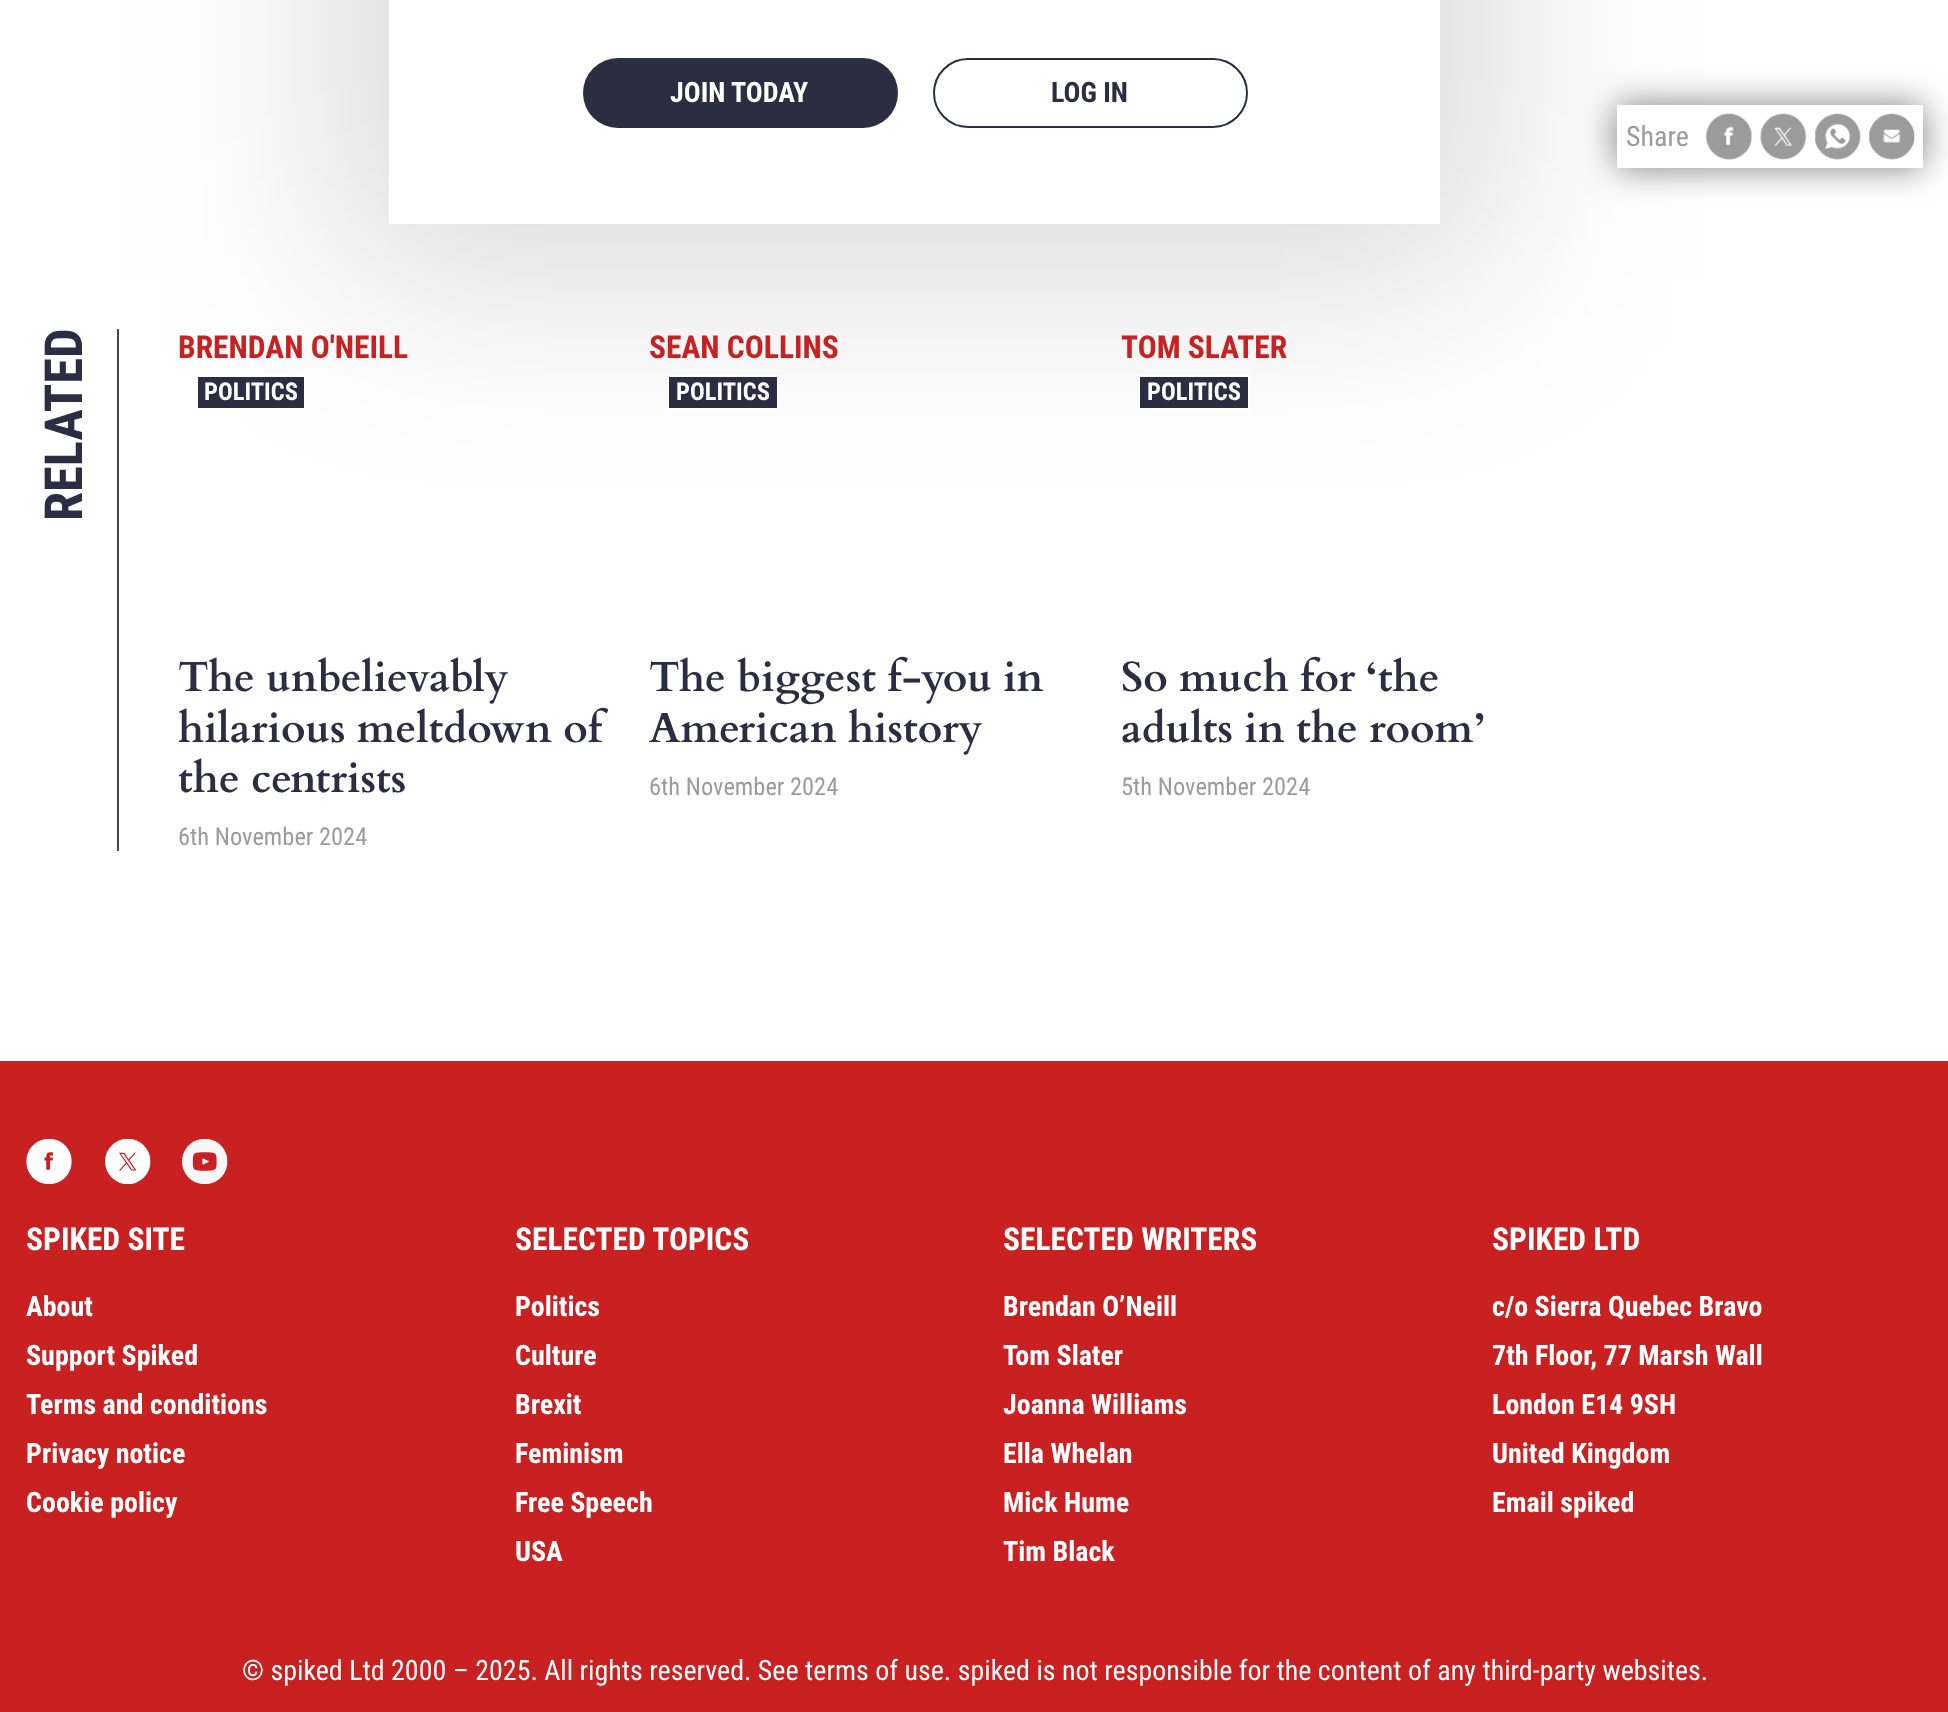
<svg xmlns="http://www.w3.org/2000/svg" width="1948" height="1712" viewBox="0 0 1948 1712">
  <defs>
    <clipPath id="clip1"><path d="M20 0H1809V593H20ZM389-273H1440V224H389Z" clip-rule="evenodd"/></clipPath>
    <clipPath id="clip2"><path d="M179 655h435v150H179z"/></clipPath>
  </defs>
  <rect width="100%" height="100%" fill="#fff"/>
  <g clip-path="url(#clip1)">
    <path d="M336 -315h1157v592H336z" fill="#00000026" filter="blur(105px)"/>
  </g>
  <rect x="583" y="58" width="315" height="70" rx="35" fill="#2b2e42"/>
  <rect x="934" y="59" width="313" height="68" rx="34" fill="none" stroke="#2b2e42" stroke-width="2"/>
  <path d="M117 329h2v522H117z" fill="#4a4a4a"/>
  <path d="M197 376h108v33H197z" fill="#2b2e42" stroke="#fff" stroke-width="2"/>
  <path d="M668 376h110v33H668z" fill="#2b2e42" stroke="#fff" stroke-width="2"/>
  <path d="M1139 376h110v33H1139z" fill="#2b2e42" stroke="#fff" stroke-width="2"/>
  <path d="M1617 105h306v63H1617z" fill="#00000080" filter="blur(17.5px)"/>
  <path d="M1617 105h306v63H1617z" fill="#fff"/>
  <image x="1706" y="113" width="47" height="47" href="img/1.png"/>
  <image x="1760" y="113" width="47" height="47" href="img/2.png"/>
  <image x="1815" y="113" width="46" height="47" href="img/3.png"/>
  <image x="1869" y="113" width="46" height="47" href="img/4.png"/>
  <path d="M0 1061h1948v651H0z" fill="#c92121"/>
  <image x="26" y="1139" width="46" height="45" href="img/5.png"/>
  <image x="105" y="1139" width="46" height="45" href="img/6.png"/>
  <image x="182" y="1139" width="46" height="45" href="img/7.png"/>
  <text x="670" y="102" font-family="Roboto Condensed" font-size="28" font-weight="bold" fill="#fff">JOIN TODAY</text>
  <text x="1051" y="102" font-family="Roboto Condensed" font-size="28" font-weight="bold" fill="#2b2e42">LOG IN</text>
  <text x="82" y="521" transform="rotate(-90 82 521)" font-family="Roboto Condensed" font-size="52.5" font-weight="bold" fill="#2b2e42">RELATED</text>
  <text x="178" y="358" font-family="Roboto Condensed" font-size="31.5" font-weight="bold" fill="#c92121">BRENDAN O'NEILL</text>
  <text x="204" y="400" font-family="Roboto Condensed" font-size="24.5" font-weight="bold" fill="#fff">POLITICS</text>
  <text x="178" y="691" font-family="Cardo" font-size="42" font-weight="bold" fill="#2b2e42">The unbelievably</text>
  <g clip-path="url(#clip2)">
    <text x="178" y="742" font-family="Cardo" font-size="42" font-weight="bold" fill="#2b2e42">hilarious meltdown of</text>
  </g>
  <text x="178" y="792" font-family="Cardo" font-size="42" font-weight="bold" fill="#2b2e42">the centrists</text>
  <text x="178" y="845" font-family="Roboto Condensed" font-size="24.5" fill="#9b9b9b">6th November 2024</text>
  <text x="649" y="358" font-family="Roboto Condensed" font-size="31.5" font-weight="bold" fill="#c92121">SEAN COLLINS</text>
  <text x="676" y="400" font-family="Roboto Condensed" font-size="24.5" font-weight="bold" fill="#fff">POLITICS</text>
  <g font-family="Cardo" font-size="42" font-weight="bold" fill="#2b2e42">
    <text x="649" y="691">The biggest f-you in</text>
    <text x="649" y="742">American history</text>
  </g>
  <text x="649" y="795" font-family="Roboto Condensed" font-size="24.5" fill="#9b9b9b">6th November 2024</text>
  <text x="1121" y="358" font-family="Roboto Condensed" font-size="31.5" font-weight="bold" fill="#c92121">TOM SLATER</text>
  <text x="1147" y="400" font-family="Roboto Condensed" font-size="24.5" font-weight="bold" fill="#fff">POLITICS</text>
  <g font-family="Cardo" font-size="42" font-weight="bold" fill="#2b2e42">
    <text x="1121" y="691">So much for ‘the</text>
    <text x="1121" y="742">adults in the room’</text>
  </g>
  <text x="1121" y="795" font-family="Roboto Condensed" font-size="24.5" fill="#9b9b9b">5th November 2024</text>
  <text x="1626" y="146" font-family="Roboto Condensed" font-size="28" fill="#9b9b9b">Share</text>
  <text x="26" y="1250" font-family="Roboto Condensed" font-size="31.5" font-weight="bold" fill="#fff">SPIKED SITE</text>
  <g font-family="Roboto Condensed" font-size="28" font-weight="bold" fill="#fff">
    <text x="26" y="1316">About</text>
    <text x="26" y="1365">Support Spiked</text>
    <text x="26" y="1414">Terms and conditions</text>
    <text x="26" y="1463">Privacy notice</text>
    <text x="26" y="1512">Cookie policy</text>
  </g>
  <text x="515" y="1250" font-family="Roboto Condensed" font-size="31.5" font-weight="bold" fill="#fff">SELECTED TOPICS</text>
  <g font-family="Roboto Condensed" font-size="28" font-weight="bold" fill="#fff">
    <text x="515" y="1316">Politics</text>
    <text x="515" y="1365">Culture</text>
    <text x="515" y="1414">Brexit</text>
    <text x="515" y="1463">Feminism</text>
    <text x="515" y="1512">Free Speech</text>
    <text x="515" y="1561">USA</text>
  </g>
  <text x="1003" y="1250" font-family="Roboto Condensed" font-size="31.5" font-weight="bold" fill="#fff">SELECTED WRITERS</text>
  <g font-family="Roboto Condensed" font-size="28" font-weight="bold" fill="#fff">
    <text x="1003" y="1316">Brendan O’Neill</text>
    <text x="1003" y="1365">Tom Slater</text>
    <text x="1003" y="1414">Joanna Williams</text>
    <text x="1003" y="1463">Ella Whelan</text>
    <text x="1003" y="1512">Mick Hume</text>
    <text x="1003" y="1561">Tim Black</text>
  </g>
  <text x="1492" y="1250" font-family="Roboto Condensed" font-size="31.5" font-weight="bold" fill="#fff">SPIKED LTD</text>
  <g font-family="Roboto Condensed" font-size="28" font-weight="bold" fill="#fff">
    <text x="1492" y="1316">c/o Sierra Quebec Bravo</text>
    <text x="1492" y="1365">7th Floor, 77 Marsh Wall</text>
    <text x="1492" y="1414">London E14 9SH</text>
    <text x="1492" y="1463">United Kingdom</text>
    <text x="1492" y="1512">Email spiked</text>
  </g>
  <text x="242" y="1680" font-family="Roboto Condensed" font-size="28" fill="#fff">© spiked Ltd 2000 – 2025. All rights reserved. See terms of use. spiked is not responsible for the content of any third-party websites.</text>
</svg>
